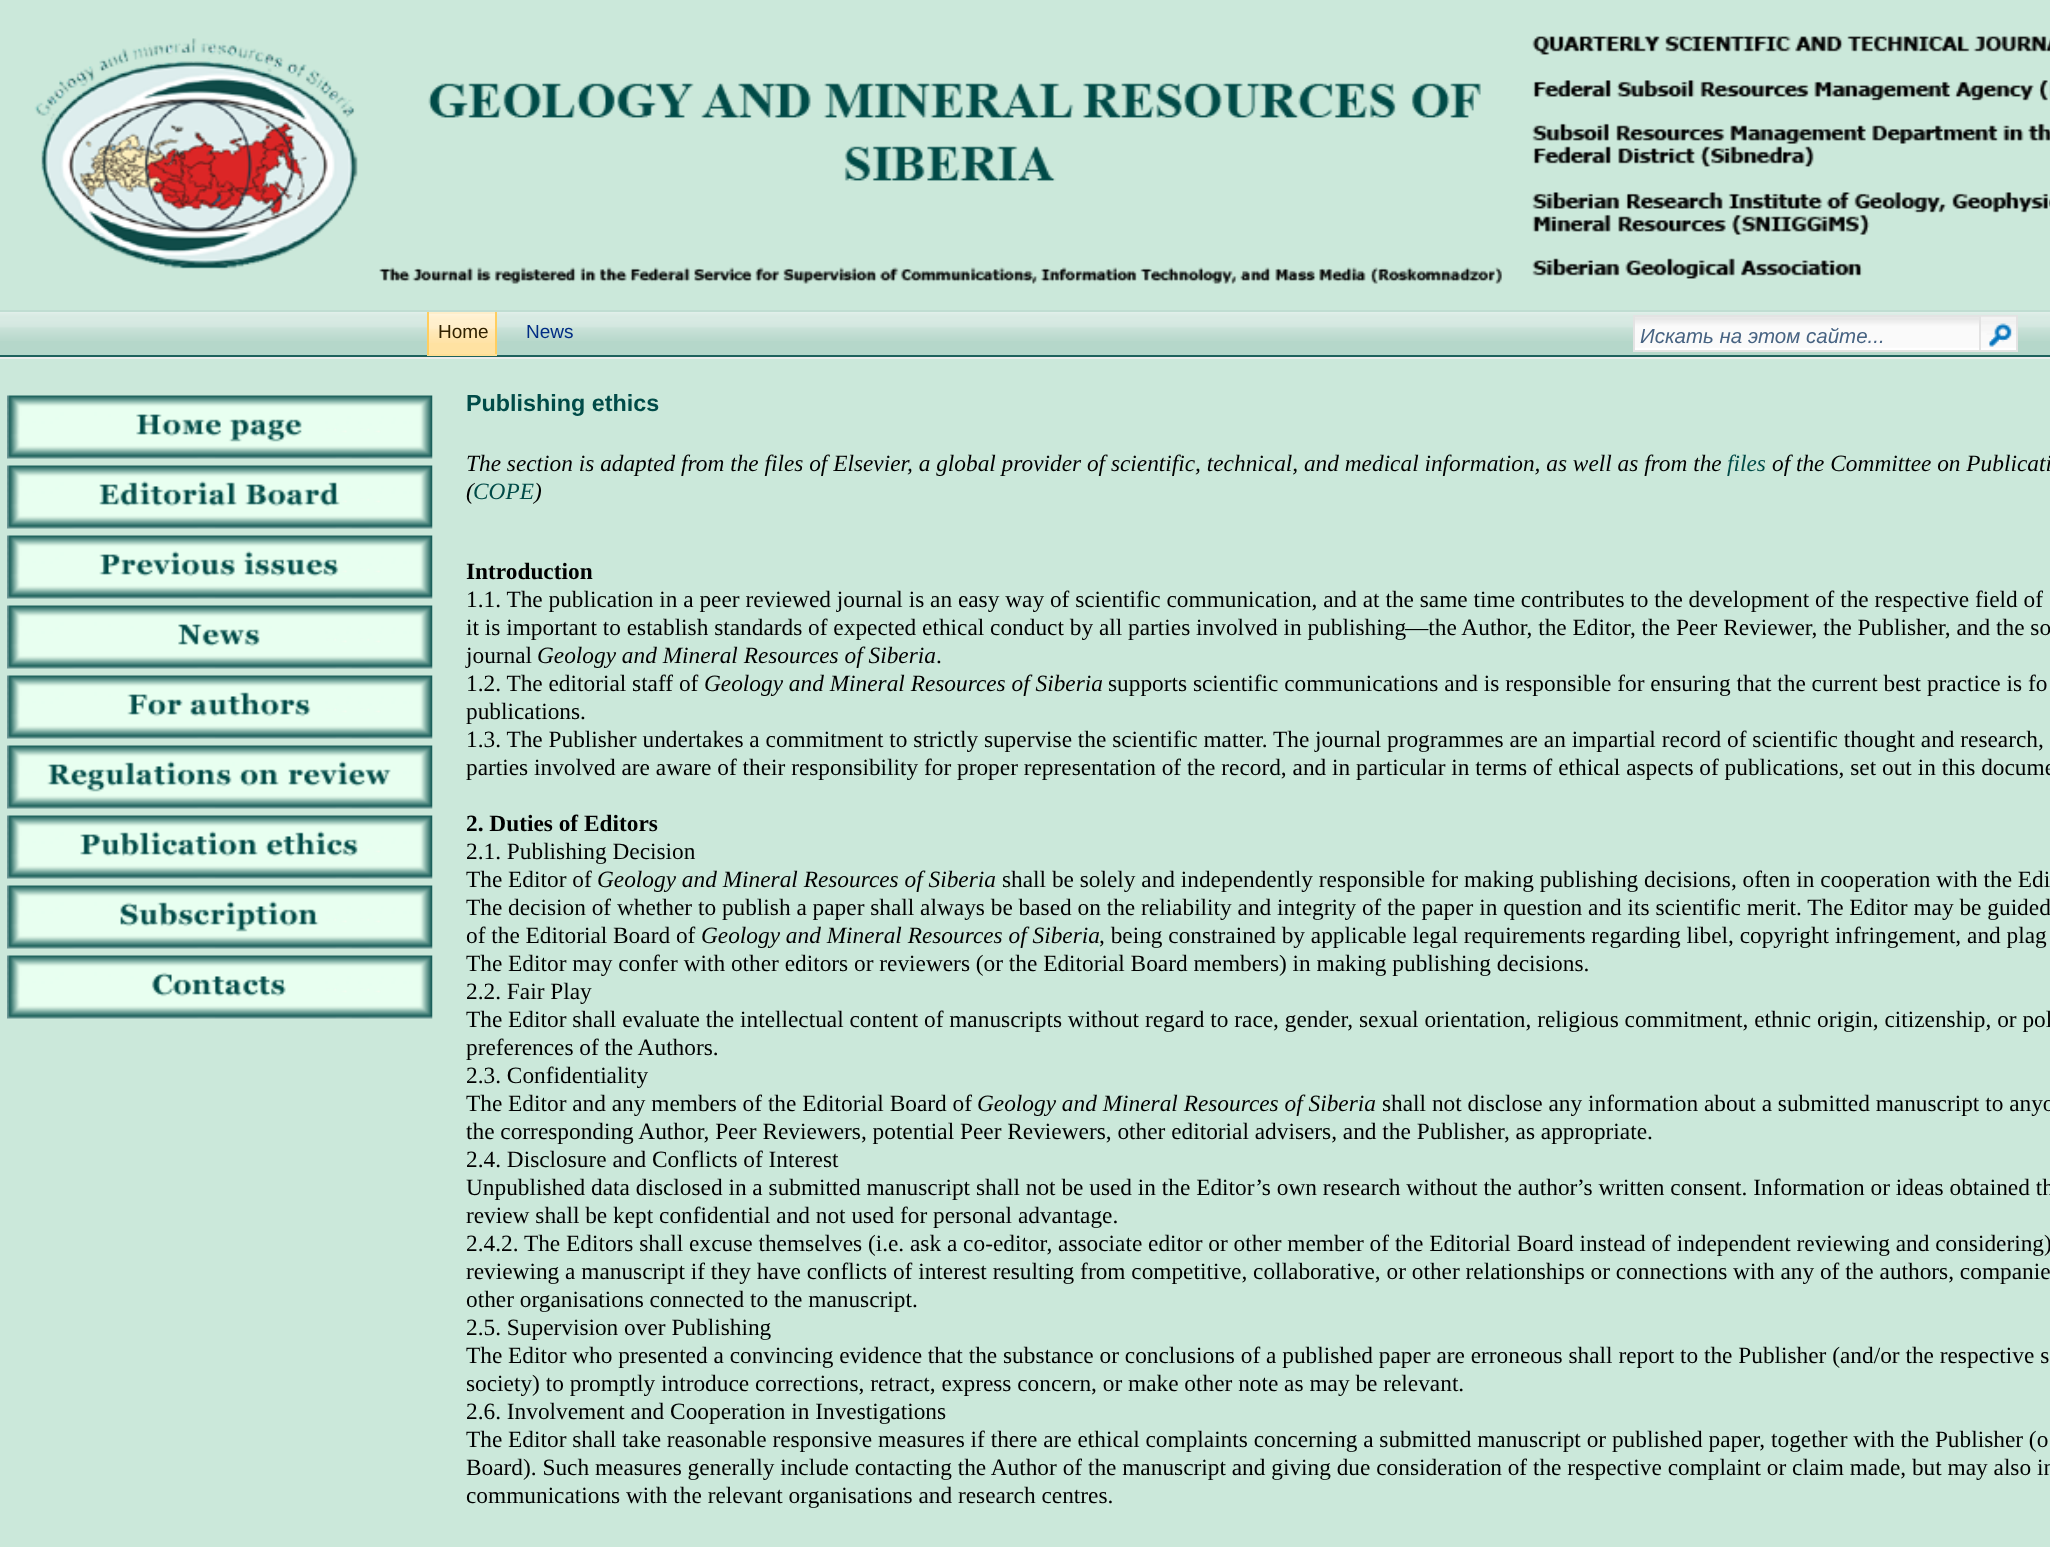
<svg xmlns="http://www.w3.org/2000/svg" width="2050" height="1547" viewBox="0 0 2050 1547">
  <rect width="100%" height="100%" fill="#ececec"/>
  <path d="M0 0h2050v310H0z" fill="#cbe8da"/>
  <image x="34" y="36" width="2016" height="248" href="img/1.png"/>
  <path d="M0 312h2050v43H0z" fill="#b5d7ca"/>
  <image x="0" y="312" width="2050" height="29" href="img/2.png"/>
  <path d="M0 310h2050v2H0z" fill="#c0ddd2"/>
  <path d="M0 355h2050v2H0z" fill="#1e625d"/>
  <path d="M429 314h66v40H429z" fill="#ffe2a2"/>
  <image x="429" y="314" width="66" height="29" href="img/3.png"/>
  <path d="M427 312h70v2H427z" fill="#feeeca"/>
  <path d="M495 312h2v43H495z" fill="#ffce60"/>
  <path d="M427 354h70v2H427z" fill="#ffde95"/>
  <path d="M427 312h2v43H427z" fill="#ffce60"/>
  <path d="M1635 317h344v33H1635z" fill="#fff"/>
  <image x="1635" y="317" width="344" height="31" href="img/4.png"/>
  <path d="M1634 316h346v35H1634z" fill="none" stroke="#e3e3e3" stroke-width="2"/>
  <path d="M1981 315h37v2H1981z" fill="#e3e3e3"/>
  <path d="M1981 319h35v31H1981z" fill="#fff"/>
  <image x="1981" y="318" width="35" height="30" href="img/6.png"/>
  <image x="1981" y="316" width="35" height="31" href="img/5.png"/>
  <path d="M2016 315h2v37H2016z" fill="#e3e3e3"/>
  <path d="M1981 350h37v2H1981z" fill="#e3e3e3"/>
  <path d="M0 359h2050v1188H0z" fill="#cbe8da"/>
  <image x="7" y="395" width="426" height="64" href="img/7.png"/>
  <image x="7" y="465" width="426" height="64" href="img/8.png"/>
  <image x="7" y="535" width="426" height="64" href="img/9.png"/>
  <image x="7" y="605" width="426" height="64" href="img/10.png"/>
  <image x="7" y="675" width="426" height="64" href="img/11.png"/>
  <image x="7" y="745" width="426" height="64" href="img/12.png"/>
  <image x="7" y="815" width="426" height="64" href="img/13.png"/>
  <image x="7" y="885" width="426" height="64" href="img/14.png"/>
  <image x="7" y="955" width="426" height="64" href="img/15.png"/>
  <text x="438" y="338" font-family="Liberation Sans" font-size="19" fill="#312200">Home</text>
  <text x="526" y="338" font-family="Liberation Sans" font-size="19" fill="#002c84">News</text>
  <text x="1640" y="343" font-family="Liberation Sans" font-size="20.5" font-style="italic" fill="#476382">Искать на этом сайте...</text>
  <text x="466" y="411" font-family="Liberation Sans" font-size="23.33" font-weight="bold" fill="#004b48">Publishing ethics</text>
  <text x="466" y="471" font-family="Liberation Serif" font-size="23.33" font-style="italic" fill="#000">The section is adapted from the files of Elsevier, a global provider of scientific, technical, and medical information, as well as from the</text>
  <text x="1727" y="471" font-family="Liberation Serif" font-size="23.33" font-style="italic" fill="#004b48">files</text>
  <g font-family="Liberation Serif" font-size="23.33" font-style="italic" fill="#000">
    <text x="1772" y="471">of the Committee on Publicati</text>
    <text x="466" y="499">(</text>
  </g>
  <text x="473" y="499" font-family="Liberation Serif" font-size="23.33" font-style="italic" fill="#004b48">COPE</text>
  <text x="534" y="499" font-family="Liberation Serif" font-size="23.33" font-style="italic" fill="#000">)</text>
  <text x="466" y="579" font-family="Liberation Serif" font-size="23.33" font-weight="bold" fill="#000">Introduction</text>
  <g font-family="Liberation Serif" font-size="23.33" fill="#000">
    <text x="466" y="607">1.1. The publication in a peer reviewed journal is an easy way of scientific communication, and at the same time contributes to the development of the respective field of</text>
    <text x="466" y="635">it is important to establish standards of expected ethical conduct by all parties involved in publishing</text>
    <text x="1405" y="635">—the Author, the Editor, the Peer Reviewer, the Publisher, and the so</text>
    <text x="466" y="663">journal</text>
  </g>
  <text x="537" y="663" font-family="Liberation Serif" font-size="23.33" font-style="italic" fill="#000">Geology and Mineral Resources of Siberia</text>
  <g font-family="Liberation Serif" font-size="23.33" fill="#000">
    <text x="936" y="663">.</text>
    <text x="466" y="691">1.2. The editorial staff of</text>
  </g>
  <text x="704" y="691" font-family="Liberation Serif" font-size="23.33" font-style="italic" fill="#000">Geology and Mineral Resources of Siberia</text>
  <g font-family="Liberation Serif" font-size="23.33" fill="#000">
    <text x="1108" y="691">supports scientific communications and is responsible for ensuring that the current best practice is fo</text>
    <text x="466" y="719">publications.</text>
    <text x="466" y="747">1.3. The Publisher undertakes a commitment to strictly supervise the scientific matter. The journal programmes are an impartial record of scientific thought and research,</text>
    <text x="466" y="775">parties involved are aware of their responsibility for proper representation of the record, and in particular in terms of ethical aspects of publications, set out in this docume</text>
  </g>
  <text x="466" y="831" font-family="Liberation Serif" font-size="23.33" font-weight="bold" fill="#000">2. Duties of Editors</text>
  <g font-family="Liberation Serif" font-size="23.33" fill="#000">
    <text x="466" y="859">2.1. Publishing Decision</text>
    <text x="466" y="887">The Editor of</text>
  </g>
  <text x="597" y="887" font-family="Liberation Serif" font-size="23.33" font-style="italic" fill="#000">Geology and Mineral Resources of Siberia</text>
  <g font-family="Liberation Serif" font-size="23.33" fill="#000">
    <text x="1002" y="887">shall be solely and independently responsible for making publishing decisions, often in cooperation with the Edi</text>
    <text x="466" y="915">The decision of whether to publish a paper shall always be based on the reliability and integrity of the paper in question and its scientific merit. The Editor may be guided</text>
    <text x="466" y="943">of the Editorial Board of</text>
  </g>
  <text x="701" y="943" font-family="Liberation Serif" font-size="23.33" font-style="italic" fill="#000">Geology and Mineral Resources of Siberia</text>
  <g font-family="Liberation Serif" font-size="23.33" fill="#000">
    <text x="1099" y="943">, being constrained by applicable legal requirements regarding libel, copyright infringement, and plag</text>
    <text x="466" y="971">The Editor may confer with other editors or reviewers (or the Editorial Board members) in making publishing decisions.</text>
    <text x="466" y="999">2.2. Fair Play</text>
    <text x="466" y="1027">The Editor shall evaluate the intellectual content of manuscripts without regard to race, gender, sexual orientation, religious commitment, ethnic origin, citizenship, or pol</text>
    <text x="466" y="1055">preferences of the Authors.</text>
    <text x="466" y="1083">2.3. Confidentiality</text>
    <text x="466" y="1111">The Editor and any members of the Editorial Board of</text>
  </g>
  <text x="977" y="1111" font-family="Liberation Serif" font-size="23.33" font-style="italic" fill="#000">Geology and Mineral Resources of Siberia</text>
  <g font-family="Liberation Serif" font-size="23.33" fill="#000">
    <text x="1382" y="1111">shall not disclose any information about a submitted manuscript to anyo</text>
    <text x="466" y="1139">the corresponding Author, Peer Reviewers, potential Peer Reviewers, other editorial advisers, and the Publisher, as appropriate.</text>
    <text x="466" y="1167">2.4. Disclosure and Conflicts of Interest</text>
    <text x="466" y="1195">Unpublished data disclosed in a submitted manuscript shall not be used in the Editor’s own research without the author</text>
    <text x="1577" y="1195">’s written consent. Information or ideas obtained th</text>
    <text x="466" y="1223">review shall be kept confidential and not used for personal advantage.</text>
    <text x="466" y="1251">2.4.2. The Editors shall excuse themselves (i.e. ask a co-editor, associate editor or other member of the Editorial Board instead of independent reviewing and considering)</text>
    <text x="466" y="1279">reviewing a manuscript if they have conflicts of interest resulting from competitive, collaborative, or other relationships or connections with any of the authors, companie</text>
    <text x="466" y="1307">other organisations connected to the manuscript.</text>
    <text x="466" y="1335">2.5. Supervision over Publishing</text>
    <text x="466" y="1363">The Editor who presented a convincing evidence that the substance or conclusions of a published paper are erroneous shall report to the Publisher (and/or the respective s</text>
    <text x="466" y="1391">society) to promptly introduce corrections, retract, express concern, or make other note as may be relevant.</text>
    <text x="466" y="1419">2.6. Involvement and Cooperation in Investigations</text>
    <text x="466" y="1447">The Editor shall take reasonable responsive measures if there are ethical complaints concerning a submitted manuscript or published paper, together with the Publisher (o</text>
    <text x="466" y="1475">Board). Such measures generally include contacting the Author of the manuscript and giving due consideration of the respective complaint or claim made, but may also in</text>
    <text x="466" y="1503">communications with the relevant organisations and research centres.</text>
  </g>
</svg>
